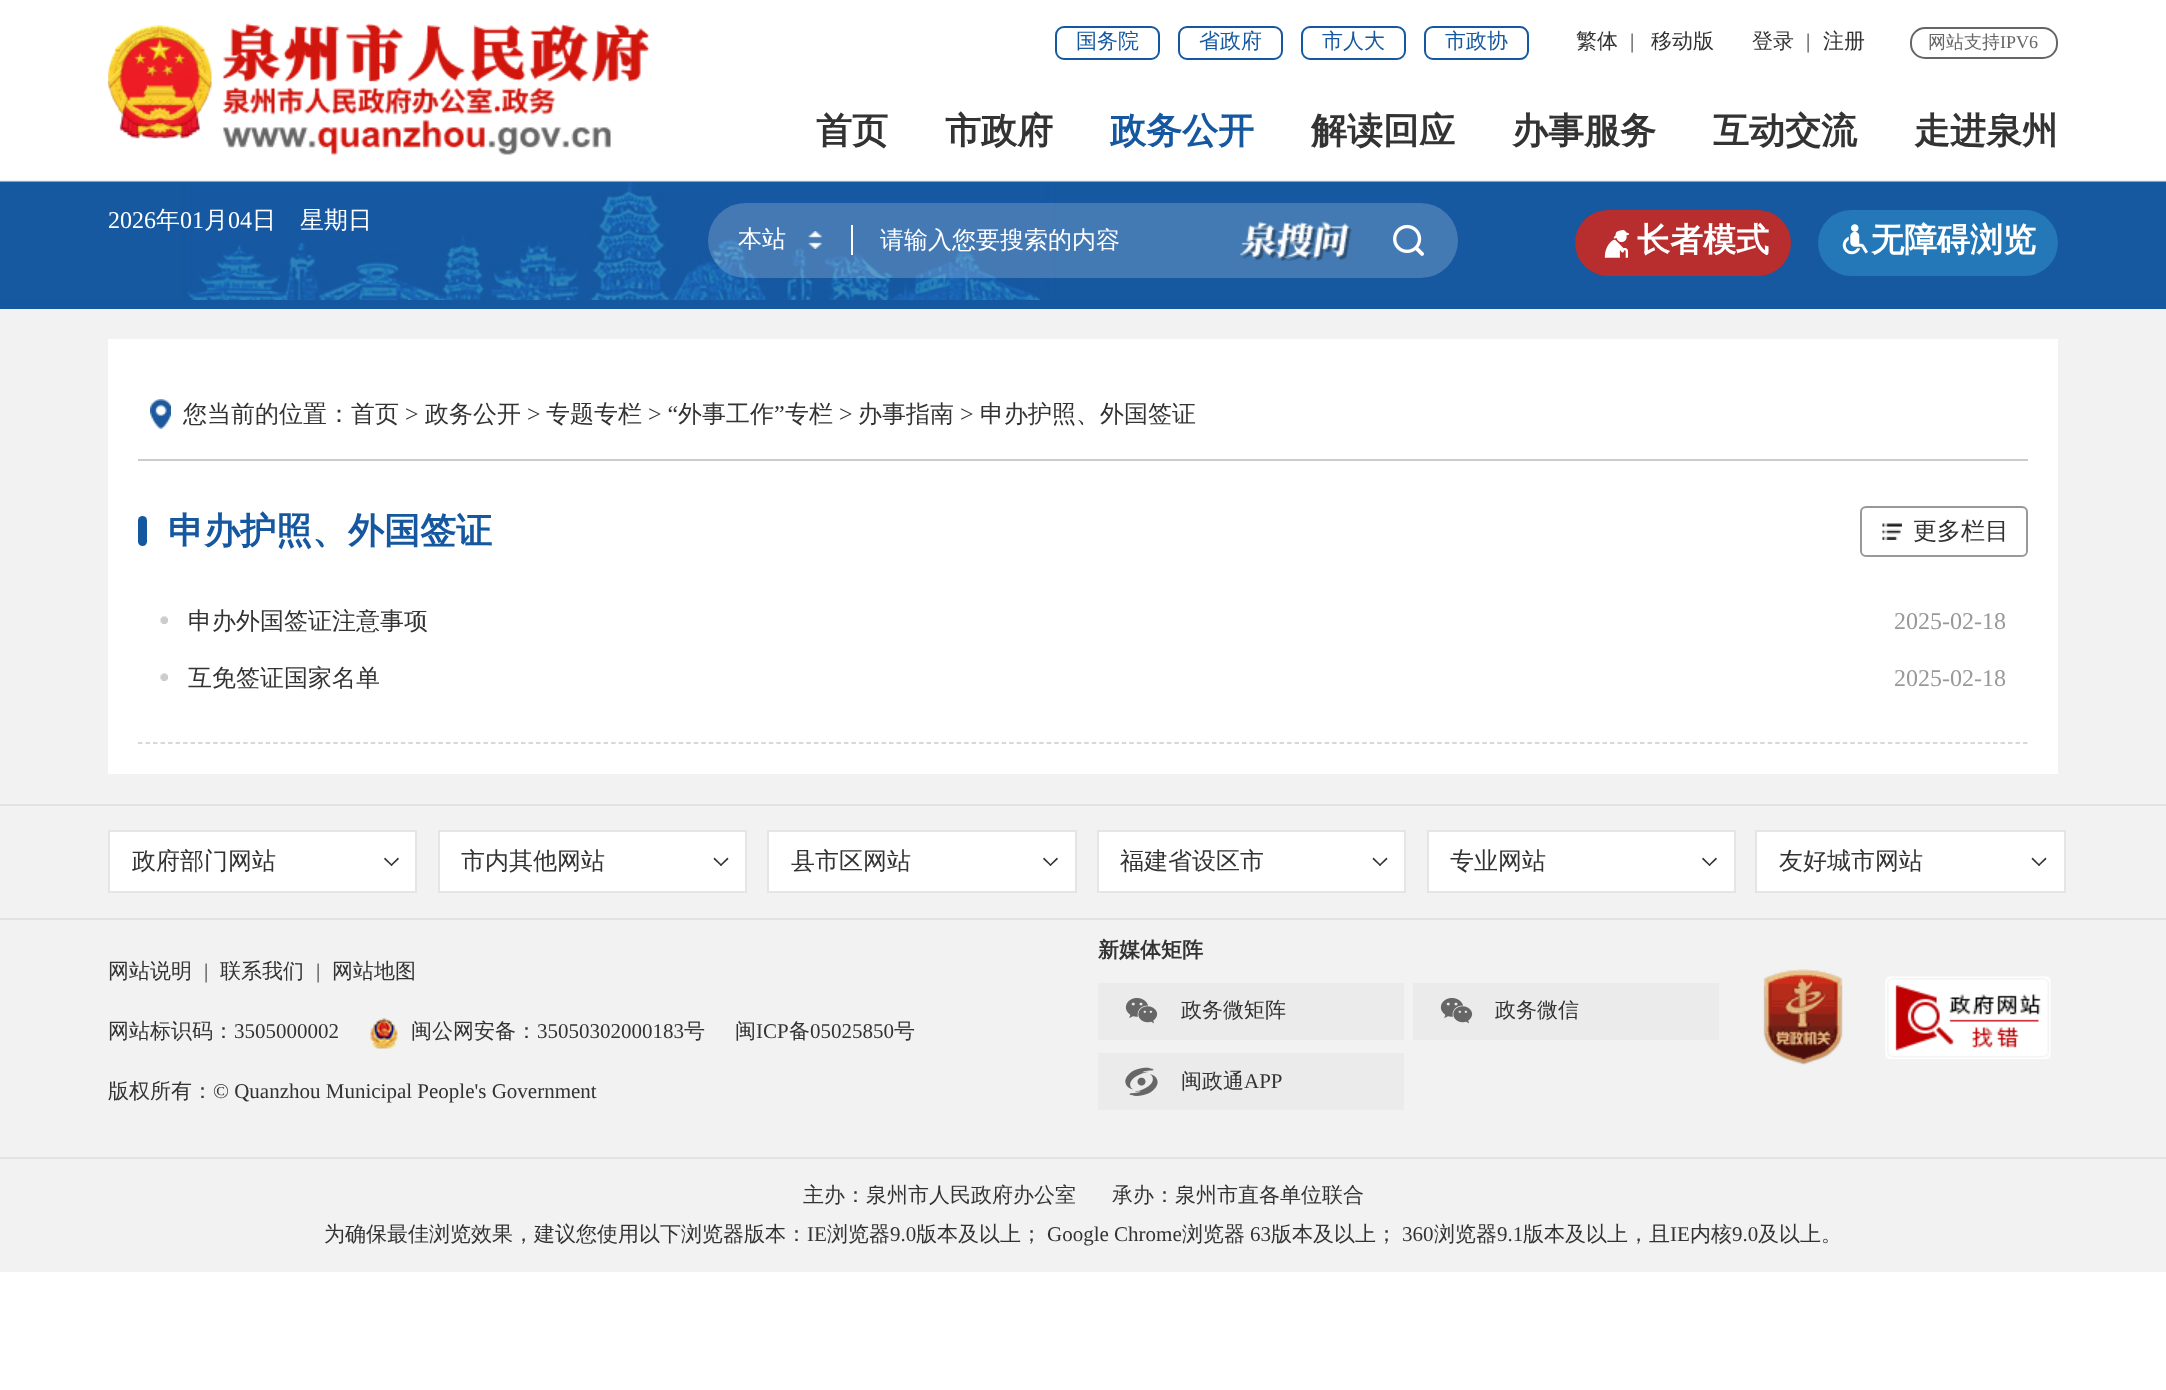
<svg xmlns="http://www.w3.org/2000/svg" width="2166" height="1390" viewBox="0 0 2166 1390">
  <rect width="100%" height="100%" fill="#fff"/>
  <path d="M0 180h2166v1092H0z" fill="#f2f2f2"/>
  <path d="M0 300h2166v9H0z" fill="#1658a0"/>
  <image x="108" y="23" width="542" height="132" href="img/1.png"/>
  <rect x="1056" y="27" width="103" height="32" rx="8" fill="none" stroke="#1658a0" stroke-width="2"/>
  <rect x="1179" y="27" width="103" height="32" rx="8" fill="none" stroke="#1658a0" stroke-width="2"/>
  <rect x="1302" y="27" width="103" height="32" rx="8" fill="none" stroke="#1658a0" stroke-width="2"/>
  <rect x="1425" y="27" width="103" height="32" rx="8" fill="none" stroke="#1658a0" stroke-width="2"/>
  <rect x="1911" y="28" width="146" height="30" rx="14" fill="none" stroke="#666" stroke-width="2"/>
  <image x="0" y="181" width="2166" height="119" href="img/2.png"/>
  <rect x="708" y="203" width="750" height="75" rx="37.5" fill="#ffffff33"/>
  <image x="808" y="231" width="14" height="18" href="img/3.png"/>
  <path d="M851 225h2v30H851z" fill="#fff"/>
  <image x="1240" y="221" width="112" height="40" href="img/4.png"/>
  <image x="1393" y="224" width="31" height="32" href="img/5.png"/>
  <rect x="1575" y="210" width="216" height="66" rx="33" fill="#b82d2e"/>
  <image x="1604" y="230" width="26" height="28" href="img/6.png"/>
  <rect x="1818" y="210" width="240" height="66" rx="33" fill="#2478b7"/>
  <image x="1842" y="224" width="26" height="31" href="img/7.png"/>
  <path d="M108 339h1950v435H108z" fill="#fff"/>
  <image x="150" y="399" width="21" height="30" href="img/8.png"/>
  <path d="M138 459h1890v2H138z" fill="#ccc"/>
  <rect x="138" y="516" width="9" height="30" rx="4.5" fill="#1658a0"/>
  <image x="1882" y="523" width="20" height="17" href="img/9.png"/>
  <rect x="1861" y="507" width="166" height="49" rx="5" fill="none" stroke="#999" stroke-width="2"/>
  <path d="M138 743H2028" fill="none" stroke="#ccc" stroke-width="1.5" stroke-dasharray="4.5 3.01"/>
  <image x="160" y="616" width="8" height="8" href="img/10.png"/>
  <image x="160" y="673" width="8" height="8" href="img/10.png"/>
  <path d="M0 804h2166v2H0z" fill="#e2e2e2"/>
  <path d="M0 918h2166v2H0z" fill="#e2e2e2"/>
  <path d="M109 831h307v61H109z" fill="#fff" stroke="#e5e5e5" stroke-width="2"/>
  <path d="M398 857.5L399 859L391.5 866L390.5 865Z" fill="#333"/>
  <path d="M385 857.5L392.5 865L391.5 866L384 859Z" fill="#333"/>
  <path d="M439 831h307v61H439z" fill="#fff" stroke="#e5e5e5" stroke-width="2"/>
  <path d="M727.5 857.5L728.5 859L721 866L720 865Z" fill="#333"/>
  <path d="M714.5 857.5L722 865L721 866L713.5 859Z" fill="#333"/>
  <path d="M768 831h308v61H768z" fill="#fff" stroke="#e5e5e5" stroke-width="2"/>
  <path d="M1057 857.5L1058 859L1050.5 866L1049.5 865Z" fill="#333"/>
  <path d="M1044 857.5L1051.5 865L1050.5 866L1043 859Z" fill="#333"/>
  <path d="M1098 831h307v61H1098z" fill="#fff" stroke="#e5e5e5" stroke-width="2"/>
  <path d="M1386.5 857.5L1387.5 859L1380 866L1379 865Z" fill="#333"/>
  <path d="M1373.5 857.5L1381 865L1380 866L1372.5 859Z" fill="#333"/>
  <path d="M1428 831h307v61H1428z" fill="#fff" stroke="#e5e5e5" stroke-width="2"/>
  <path d="M1716 857.5L1717 859L1709.5 866L1708.5 865Z" fill="#333"/>
  <path d="M1703 857.5L1710.5 865L1709.5 866L1702 859Z" fill="#333"/>
  <path d="M1756 831h309v61H1756z" fill="#fff" stroke="#e5e5e5" stroke-width="2"/>
  <path d="M2045.5 857.5L2046.5 859L2039 866L2038 865Z" fill="#333"/>
  <path d="M2032.5 857.5L2040 865L2039 866L2031.5 859Z" fill="#333"/>
  <image x="370" y="1018" width="28" height="31" href="img/11.png"/>
  <path d="M1098 983h306v57H1098z" fill="#ebebeb"/>
  <image x="1125" y="998" width="33" height="26" href="img/12.png"/>
  <path d="M1413 983h306v57H1413z" fill="#ebebeb"/>
  <image x="1440" y="998" width="33" height="26" href="img/12.png"/>
  <path d="M1098 1053h306v57H1098z" fill="#ebebeb"/>
  <image x="1125" y="1067" width="33" height="29" href="img/13.png"/>
  <image x="1763" y="969" width="80" height="97" href="img/14.png"/>
  <image x="1885" y="976" width="166" height="83" href="img/15.png"/>
  <path d="M0 1157h2166v2H0z" fill="#e2e2e2"/>
  <g font-family="WenQuanYi Zen Hei" font-size="21" font-weight="500" fill="#1658a0">
    <text x="1076" y="48">国务院</text>
    <text x="1199" y="48">省政府</text>
    <text x="1322" y="48">市人大</text>
    <text x="1445" y="48">市政协</text>
  </g>
  <text x="1576" y="48" font-family="WenQuanYi Zen Hei" font-size="21" font-weight="500" fill="#333">繁体</text>
  <text x="1630" y="48" font-family="Liberation Serif" font-size="21" fill="#333">|</text>
  <g font-family="WenQuanYi Zen Hei" font-size="21" font-weight="500" fill="#333">
    <text x="1651" y="48">移动版</text>
    <text x="1752" y="48">登录</text>
  </g>
  <text x="1806" y="48" font-family="Liberation Serif" font-size="21" fill="#333">|</text>
  <text x="1823" y="48" font-family="WenQuanYi Zen Hei" font-size="21" font-weight="500" fill="#333">注册</text>
  <text x="1928" y="48" font-family="WenQuanYi Zen Hei" font-size="18" font-weight="500" fill="#666">网站支持</text>
  <text x="2000" y="48" font-family="Liberation Serif" font-size="18" fill="#666">IPV6</text>
  <g font-family="WenQuanYi Zen Hei" font-size="36" font-weight="bold" fill="#333">
    <text x="816" y="143">首页</text>
    <text x="945" y="143">市政府</text>
  </g>
  <text x="1110" y="143" font-family="WenQuanYi Zen Hei" font-size="36" font-weight="bold" fill="#1658a0">政务公开</text>
  <g font-family="WenQuanYi Zen Hei" font-size="36" font-weight="bold" fill="#333">
    <text x="1311" y="143">解读回应</text>
    <text x="1512" y="143">办事服务</text>
    <text x="1713" y="143">互动交流</text>
    <text x="1914" y="143">走进泉州</text>
  </g>
  <text x="108" y="228" font-family="Liberation Serif" font-size="24" fill="#fff">2026</text>
  <text x="156" y="228" font-family="WenQuanYi Zen Hei" font-size="24" font-weight="500" fill="#fff">年</text>
  <text x="180" y="228" font-family="Liberation Serif" font-size="24" fill="#fff">01</text>
  <text x="204" y="228" font-family="WenQuanYi Zen Hei" font-size="24" font-weight="500" fill="#fff">月</text>
  <text x="228" y="228" font-family="Liberation Serif" font-size="24" fill="#fff">04</text>
  <g font-family="WenQuanYi Zen Hei" font-size="24" font-weight="500" fill="#fff">
    <text x="252" y="228">日</text>
    <text x="300" y="228">星期日</text>
    <text x="738" y="247">本站</text>
    <text x="880" y="248">请输入您要搜索的内容</text>
  </g>
  <g font-family="WenQuanYi Zen Hei" font-size="33" font-weight="bold" fill="#fff">
    <text x="1637" y="251">长者模式</text>
    <text x="1871" y="251">无障碍浏览</text>
  </g>
  <text x="183" y="422" font-family="WenQuanYi Zen Hei" font-size="24" font-weight="500" fill="#333">您当前的位置：首页</text>
  <text x="405" y="422" font-family="Liberation Serif" font-size="24" fill="#333">&gt;</text>
  <text x="425" y="422" font-family="WenQuanYi Zen Hei" font-size="24" font-weight="500" fill="#333">政务公开</text>
  <text x="527" y="422" font-family="Liberation Serif" font-size="24" fill="#333">&gt;</text>
  <text x="546" y="422" font-family="WenQuanYi Zen Hei" font-size="24" font-weight="500" fill="#333">专题专栏</text>
  <text x="648" y="422" font-family="Liberation Serif" font-size="24" fill="#333">&gt; “</text>
  <text x="678" y="422" font-family="WenQuanYi Zen Hei" font-size="24" font-weight="500" fill="#333">外事工作</text>
  <text x="774" y="422" font-family="Liberation Serif" font-size="24" fill="#333">”</text>
  <text x="785" y="422" font-family="WenQuanYi Zen Hei" font-size="24" font-weight="500" fill="#333">专栏</text>
  <text x="839" y="422" font-family="Liberation Serif" font-size="24" fill="#333">&gt;</text>
  <text x="858" y="422" font-family="WenQuanYi Zen Hei" font-size="24" font-weight="500" fill="#333">办事指南</text>
  <text x="960" y="422" font-family="Liberation Serif" font-size="24" fill="#333">&gt;</text>
  <text x="980" y="422" font-family="WenQuanYi Zen Hei" font-size="24" font-weight="500" fill="#333">申办护照、外国签证</text>
  <text x="168" y="543" font-family="WenQuanYi Zen Hei" font-size="36" font-weight="bold" fill="#1658a0">申办护照、外国签证</text>
  <g font-family="WenQuanYi Zen Hei" font-size="24" font-weight="500" fill="#333">
    <text x="1913" y="539">更多栏目</text>
    <text x="188" y="629">申办外国签证注意事项</text>
  </g>
  <text x="1894" y="629" font-family="Liberation Serif" font-size="24" fill="#999">2025-02-18</text>
  <text x="188" y="686" font-family="WenQuanYi Zen Hei" font-size="24" font-weight="500" fill="#333">互免签证国家名单</text>
  <text x="1894" y="686" font-family="Liberation Serif" font-size="24" fill="#999">2025-02-18</text>
  <g font-family="WenQuanYi Zen Hei" font-size="24" font-weight="500" fill="#333">
    <text x="132" y="869">政府部门网站</text>
    <text x="461" y="869">市内其他网站</text>
    <text x="791" y="869">县市区网站</text>
    <text x="1120" y="869">福建省设区市</text>
    <text x="1450" y="869">专业网站</text>
    <text x="1779" y="869">友好城市网站</text>
  </g>
  <text x="108" y="978" font-family="WenQuanYi Zen Hei" font-size="21" font-weight="500" fill="#333">网站说明</text>
  <text x="204" y="978" font-family="Liberation Serif" font-size="21" fill="#333">|</text>
  <text x="220" y="978" font-family="WenQuanYi Zen Hei" font-size="21" font-weight="500" fill="#333">联系我们</text>
  <text x="316" y="978" font-family="Liberation Serif" font-size="21" fill="#333">|</text>
  <g font-family="WenQuanYi Zen Hei" font-size="21" font-weight="500" fill="#333">
    <text x="332" y="978">网站地图</text>
    <text x="108" y="1038">网站标识码：</text>
  </g>
  <text x="234" y="1038" font-family="Liberation Serif" font-size="21" fill="#333">3505000002</text>
  <text x="411" y="1038" font-family="WenQuanYi Zen Hei" font-size="21" font-weight="500" fill="#333">闽公网安备：</text>
  <text x="537" y="1038" font-family="Liberation Serif" font-size="21" fill="#333">35050302000183</text>
  <g font-family="WenQuanYi Zen Hei" font-size="21" font-weight="500" fill="#333">
    <text x="684" y="1038">号</text>
    <text x="735" y="1038">闽</text>
  </g>
  <text x="756" y="1038" font-family="Liberation Serif" font-size="21" fill="#333">ICP</text>
  <text x="789" y="1038" font-family="WenQuanYi Zen Hei" font-size="21" font-weight="500" fill="#333">备</text>
  <text x="810" y="1038" font-family="Liberation Serif" font-size="21" fill="#333">05025850</text>
  <g font-family="WenQuanYi Zen Hei" font-size="21" font-weight="500" fill="#333">
    <text x="894" y="1038">号</text>
    <text x="108" y="1098">版权所有：</text>
  </g>
  <text x="213" y="1098" font-family="Liberation Serif" font-size="21" fill="#333">© Quanzhou Municipal People's Government</text>
  <text x="1098" y="957" font-family="WenQuanYi Zen Hei" font-size="21" font-weight="bold" fill="#333">新媒体矩阵</text>
  <g font-family="WenQuanYi Zen Hei" font-size="21" font-weight="500" fill="#333">
    <text x="1181" y="1017">政务微矩阵</text>
    <text x="1495" y="1017">政务微信</text>
    <text x="1181" y="1088">闽政通</text>
  </g>
  <text x="1244" y="1088" font-family="Liberation Serif" font-size="21" fill="#333">APP</text>
  <g font-family="WenQuanYi Zen Hei" font-size="21" font-weight="500" fill="#333">
    <text x="803" y="1202">主办：泉州市人民政府办公室</text>
    <text x="1112" y="1202">承办：泉州市直各单位联合</text>
    <text x="324" y="1241">为确保最佳浏览效果，建议您使用以下浏览器版本：</text>
  </g>
  <text x="807" y="1241" font-family="Liberation Serif" font-size="21" fill="#333">IE</text>
  <text x="827" y="1241" font-family="WenQuanYi Zen Hei" font-size="21" font-weight="500" fill="#333">浏览器</text>
  <text x="890" y="1241" font-family="Liberation Serif" font-size="21" fill="#333">9.0</text>
  <text x="916" y="1241" font-family="WenQuanYi Zen Hei" font-size="21" font-weight="500" fill="#333">版本及以上；</text>
  <text x="1047" y="1241" font-family="Liberation Serif" font-size="21" fill="#333">Google Chrome</text>
  <text x="1182" y="1241" font-family="WenQuanYi Zen Hei" font-size="21" font-weight="500" fill="#333">浏览器</text>
  <text x="1250" y="1241" font-family="Liberation Serif" font-size="21" fill="#333">63</text>
  <text x="1271" y="1241" font-family="WenQuanYi Zen Hei" font-size="21" font-weight="500" fill="#333">版本及以上；</text>
  <text x="1402" y="1241" font-family="Liberation Serif" font-size="21" fill="#333">360</text>
  <text x="1434" y="1241" font-family="WenQuanYi Zen Hei" font-size="21" font-weight="500" fill="#333">浏览器</text>
  <text x="1497" y="1241" font-family="Liberation Serif" font-size="21" fill="#333">9.1</text>
  <text x="1523" y="1241" font-family="WenQuanYi Zen Hei" font-size="21" font-weight="500" fill="#333">版本及以上，且</text>
  <text x="1670" y="1241" font-family="Liberation Serif" font-size="21" fill="#333">IE</text>
  <text x="1690" y="1241" font-family="WenQuanYi Zen Hei" font-size="21" font-weight="500" fill="#333">内核</text>
  <text x="1732" y="1241" font-family="Liberation Serif" font-size="21" fill="#333">9.0</text>
  <text x="1758" y="1241" font-family="WenQuanYi Zen Hei" font-size="21" font-weight="500" fill="#333">及以上。</text>
</svg>
